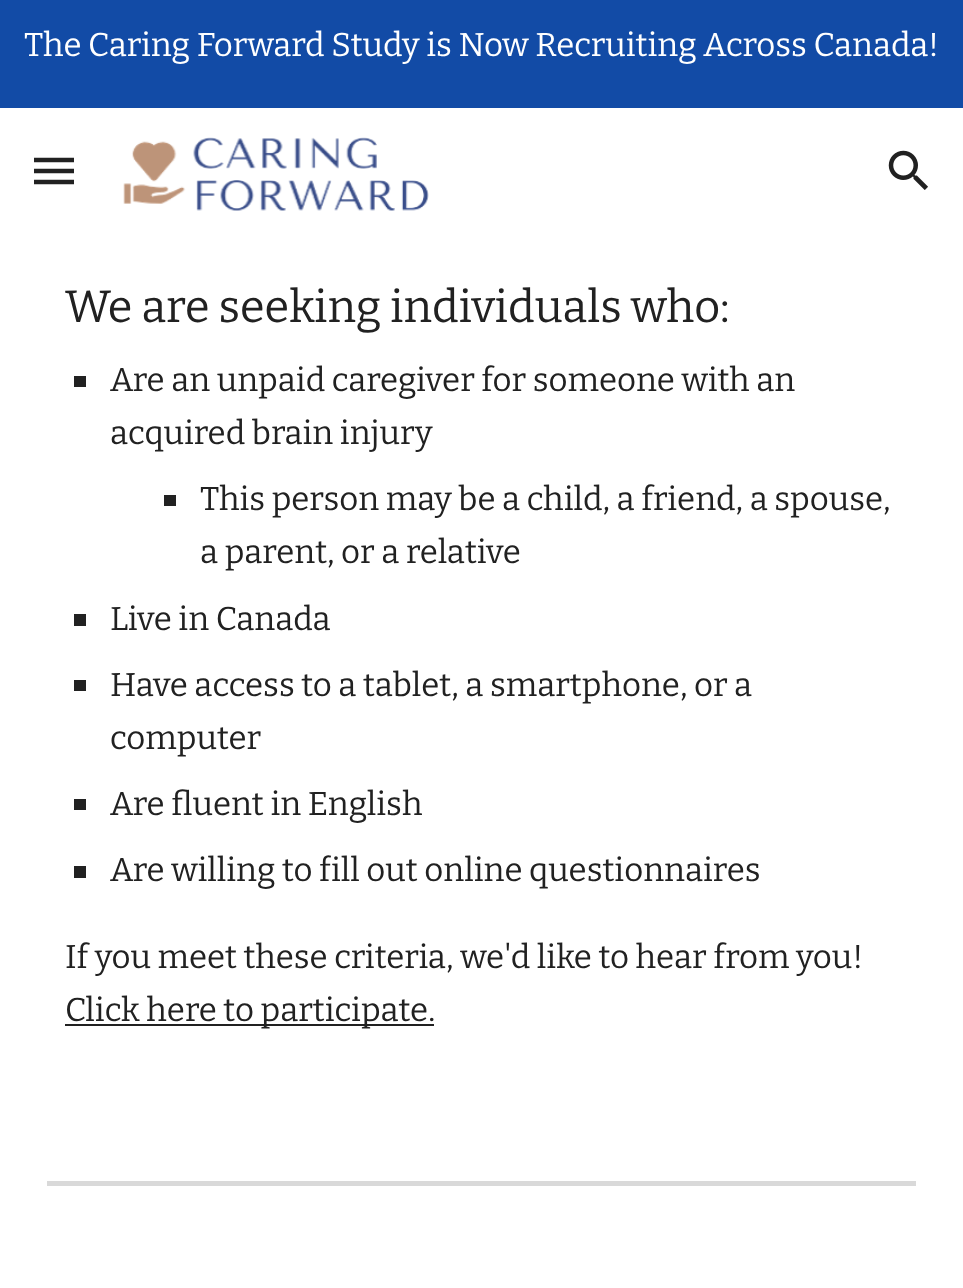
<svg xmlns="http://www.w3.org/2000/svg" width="963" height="1288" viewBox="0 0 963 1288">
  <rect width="100%" height="100%" fill="#fff"/>
  <path d="M0 0h963v108H0z" fill="#124ba6"/>
  <path d="M34 160H74M34 171H74M34 182H74" fill="none" stroke="#212121" stroke-width="4.5"/>
  <image x="123" y="137" width="306" height="74" href="img/1.png"/>
  <image x="888" y="150" width="40" height="40" href="img/2.png"/>
  <path d="M74 376h12v11H74z" fill="#212121"/>
  <path d="M164 495h12v11H164z" fill="#212121"/>
  <path d="M74 614h12v12H74z" fill="#212121"/>
  <path d="M74 680h12v11H74z" fill="#212121"/>
  <path d="M74 799h12v11H74z" fill="#212121"/>
  <path d="M74 866h12v12H74z" fill="#212121"/>
  <path d="M65 1024h369v2H65z" fill="#212121"/>
  <path d="M47 1181h869v5H47z" fill="#d9d9d9"/>
  <text x="24" y="56" font-family="Bitter" font-size="33" fill="#fff">The Caring Forward Study is Now Recruiting Across Canada!</text>
  <text x="65" y="322" font-family="Bitter" font-size="45" fill="#212121">We are seeking individuals who:</text>
  <g font-family="Bitter" font-size="33" fill="#212121">
    <text x="110" y="391">Are an unpaid caregiver for someone with an</text>
    <text x="110" y="444">acquired brain injury</text>
    <text x="200" y="510">This person may be a child, a friend, a spouse,</text>
    <text x="200" y="563">a parent, or a relative</text>
    <text x="110" y="630">Live in Canada</text>
    <text x="110" y="696">Have access to a tablet, a smartphone, or a</text>
    <text x="110" y="749">computer</text>
    <text x="110" y="815">Are fluent in English</text>
    <text x="110" y="881">Are willing to fill out online questionnaires</text>
    <text x="65" y="968">If you meet these criteria, we'd like to hear from you!</text>
    <text x="65" y="1021">Click here to participate.</text>
  </g>
</svg>
